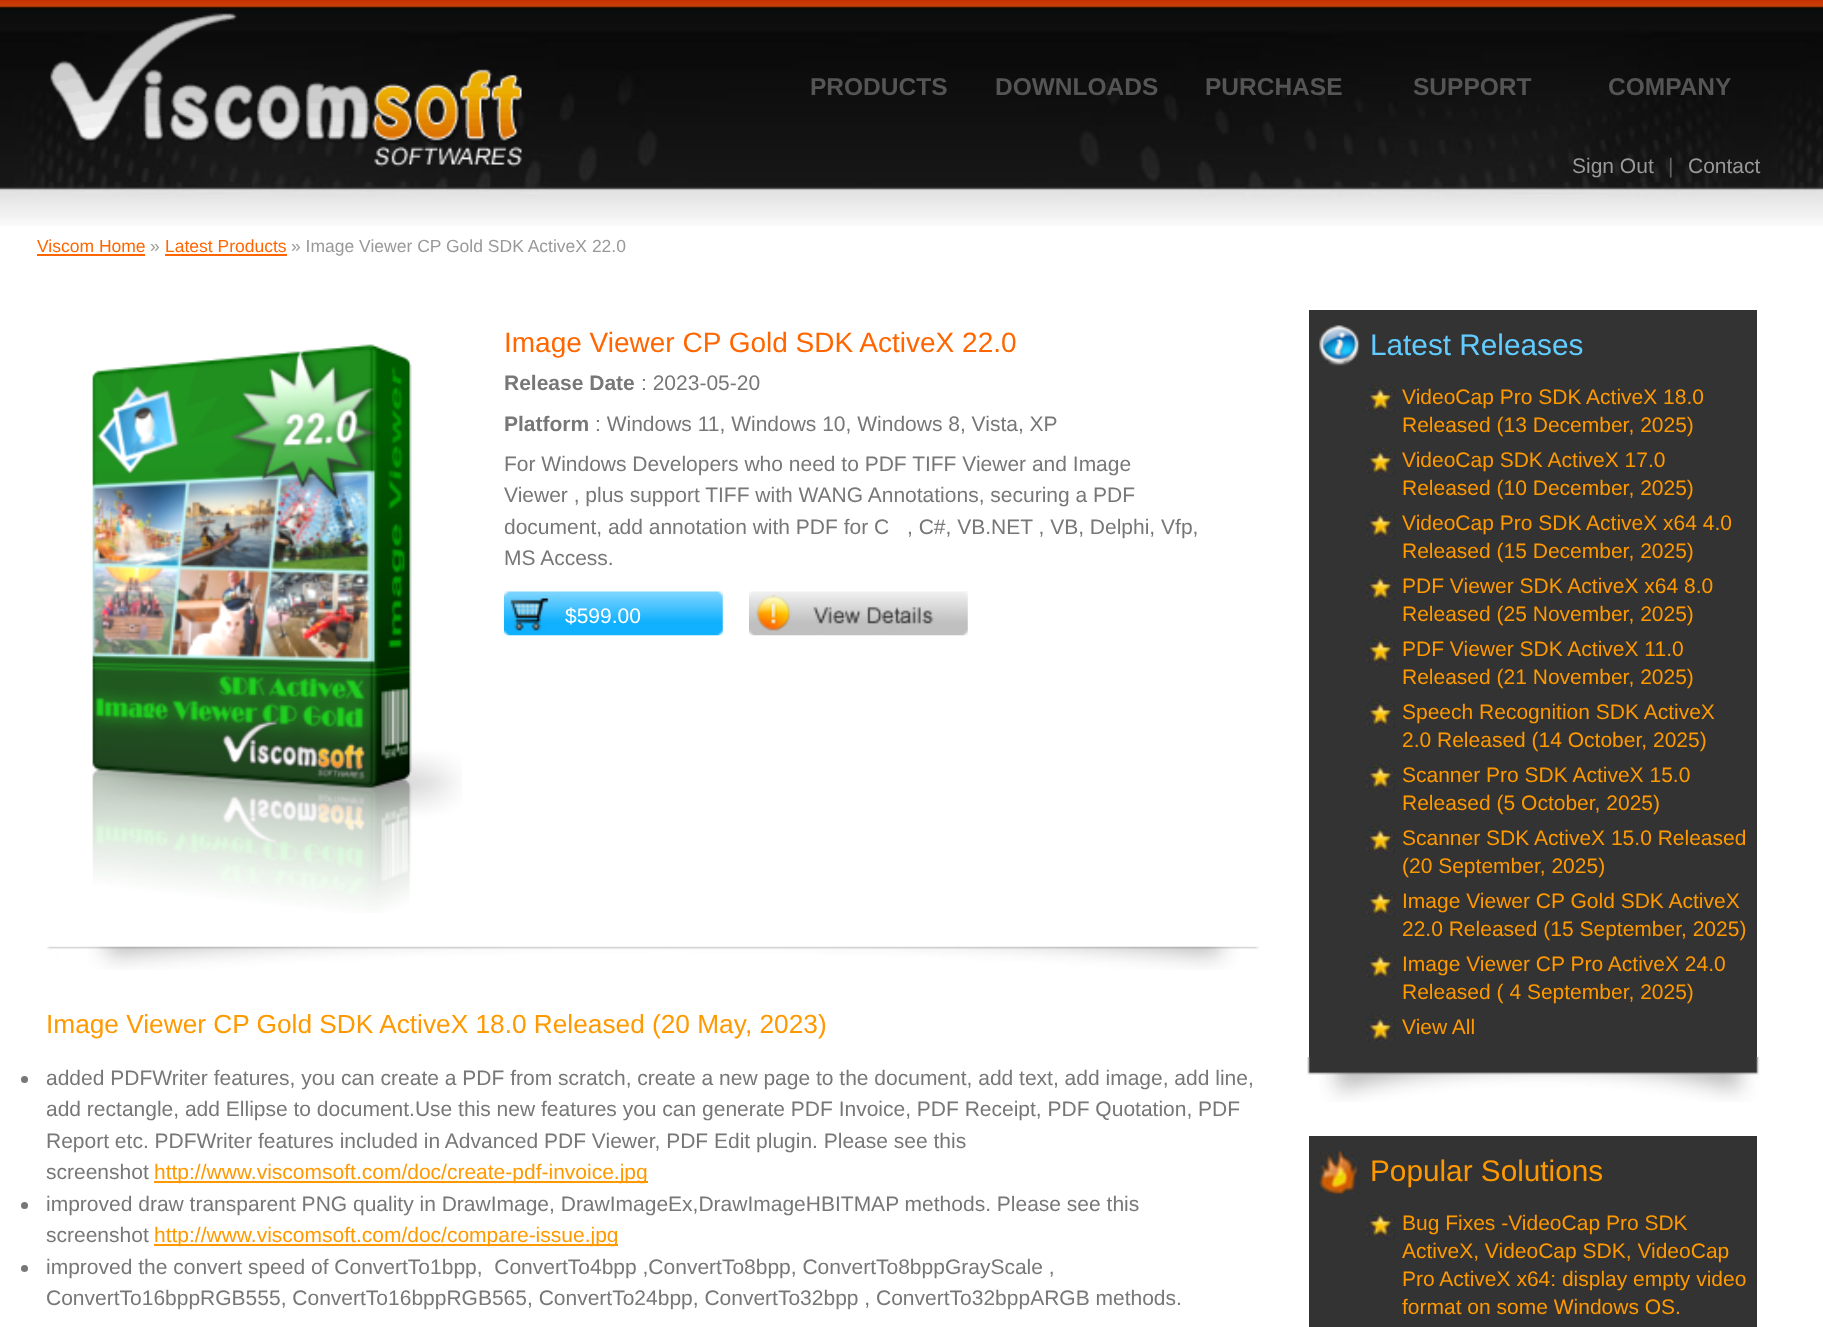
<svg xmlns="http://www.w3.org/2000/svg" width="1823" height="1327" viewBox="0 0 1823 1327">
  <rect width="100%" height="100%" fill="#fff"/>
  <image x="0" y="0" width="1823" height="226" href="img/1.png"/>
  <image x="50" y="13" width="473" height="154" href="img/2.png"/>
  <path d="M37 254h108v2H37z" fill="#f60"/>
  <path d="M165 254h122v2H165z" fill="#f60"/>
  <image x="92" y="344" width="370" height="569" href="img/3.png"/>
  <image x="504" y="591" width="219" height="45" href="img/4.png"/>
  <image x="749" y="591" width="219" height="45" href="img/5.png"/>
  <image x="46" y="946" width="1213" height="24" href="img/6.png"/>
  <circle cx="24.5" cy="1079.5" r="3.5" fill="#777"/>
  <path d="M154 1181h494v2H154z" fill="#f90"/>
  <circle cx="24.5" cy="1205.5" r="3.5" fill="#777"/>
  <path d="M154 1244h464v2H154z" fill="#f90"/>
  <circle cx="24.5" cy="1268.5" r="3.5" fill="#777"/>
  <path d="M1309 310h448v747H1309z" fill="#333"/>
  <image x="1319" y="325" width="41" height="41" href="img/7.png"/>
  <image x="1366" y="385" width="29" height="28" href="img/8.png"/>
  <image x="1366" y="448" width="29" height="28" href="img/8.png"/>
  <image x="1366" y="511" width="29" height="28" href="img/8.png"/>
  <image x="1366" y="574" width="29" height="28" href="img/8.png"/>
  <image x="1366" y="637" width="29" height="28" href="img/8.png"/>
  <image x="1366" y="700" width="29" height="28" href="img/8.png"/>
  <image x="1366" y="763" width="29" height="28" href="img/8.png"/>
  <image x="1366" y="826" width="29" height="28" href="img/8.png"/>
  <image x="1366" y="889" width="29" height="28" href="img/8.png"/>
  <image x="1366" y="952" width="29" height="28" href="img/8.png"/>
  <image x="1366" y="1015" width="29" height="26" href="img/9.png"/>
  <image x="1307" y="1057" width="453" height="45" href="img/10.png"/>
  <path d="M1309 1136h448v191H1309z" fill="#333"/>
  <image x="1318" y="1151" width="42" height="43" href="img/11.png"/>
  <image x="1366" y="1211" width="29" height="28" href="img/8.png"/>
  <g font-family="Liberation Sans" font-size="24.5" font-weight="bold" fill="#555">
    <text x="810" y="95">PRODUCTS</text>
    <text x="995" y="95">DOWNLOADS</text>
    <text x="1205" y="95">PURCHASE</text>
    <text x="1413" y="95">SUPPORT</text>
    <text x="1608" y="95">COMPANY</text>
  </g>
  <text x="1572" y="173" font-family="Liberation Sans" font-size="21" fill="#999">Sign Out</text>
  <text x="1668" y="173" font-family="Liberation Sans" font-size="21" fill="#666">|</text>
  <text x="1688" y="173" font-family="Liberation Sans" font-size="21" fill="#999">Contact</text>
  <text x="37" y="252" font-family="Liberation Sans" font-size="17.5" fill="#f60">Viscom Home</text>
  <text x="150" y="252" font-family="Liberation Sans" font-size="17.5" fill="#999">»</text>
  <text x="165" y="252" font-family="Liberation Sans" font-size="17.5" fill="#f60">Latest Products</text>
  <text x="291" y="252" font-family="Liberation Sans" font-size="17.5" fill="#999">» Image Viewer CP Gold SDK ActiveX 22.0</text>
  <text x="504" y="352" font-family="Liberation Sans" font-size="28" fill="#f60">Image Viewer CP Gold SDK ActiveX 22.0</text>
  <text x="504" y="390" font-family="Liberation Sans" font-size="21" font-weight="bold" fill="#777">Release Date</text>
  <text x="641" y="390" font-family="Liberation Sans" font-size="21" fill="#777">: 2023-05-20</text>
  <text x="504" y="431" font-family="Liberation Sans" font-size="21" font-weight="bold" fill="#777">Platform</text>
  <g font-family="Liberation Sans" font-size="21" fill="#777">
    <text x="595" y="431">: Windows 11, Windows 10, Windows 8, Vista, XP</text>
    <text x="504" y="471">For Windows Developers who need to PDF TIFF Viewer and Image</text>
    <text x="504" y="502">Viewer , plus support TIFF with WANG Annotations, securing a PDF</text>
    <text x="504" y="534">document, add annotation with PDF for C</text>
    <text x="907" y="534">, C#, VB.NET , VB, Delphi, Vfp,</text>
    <text x="504" y="565">MS Access.</text>
  </g>
  <text x="565" y="623" font-family="Liberation Sans" font-size="21" fill="#fff">$599.00</text>
  <text x="46" y="1033" font-family="Liberation Sans" font-size="26.25" fill="#f90">Image Viewer CP Gold SDK ActiveX 18.0 Released (20 May, 2023)</text>
  <g font-family="Liberation Sans" font-size="21" fill="#777">
    <text x="46" y="1085">added PDFWriter features, you can create a PDF from scratch, create a new page to the document, add text, add image, add line,</text>
    <text x="46" y="1116">add rectangle, add Ellipse to document.Use this new features you can generate PDF Invoice, PDF Receipt, PDF Quotation, PDF</text>
    <text x="46" y="1148">Report etc. PDFWriter features included in Advanced PDF Viewer, PDF Edit plugin. Please see this</text>
    <text x="46" y="1179">screenshot</text>
  </g>
  <text x="154" y="1179" font-family="Liberation Sans" font-size="21" fill="#f90">http://www.viscomsoft.com/doc/create-pdf-invoice.jpg</text>
  <g font-family="Liberation Sans" font-size="21" fill="#777">
    <text x="46" y="1211">improved draw transparent PNG quality in DrawImage, DrawImageEx,DrawImageHBITMAP methods. Please see this</text>
    <text x="46" y="1242">screenshot</text>
  </g>
  <text x="154" y="1242" font-family="Liberation Sans" font-size="21" fill="#f90">http://www.viscomsoft.com/doc/compare-issue.jpg</text>
  <g font-family="Liberation Sans" font-size="21" fill="#777">
    <text x="46" y="1274" xml:space="preserve">improved the convert speed of ConvertTo1bpp,  ConvertTo4bpp ,ConvertTo8bpp, ConvertTo8bppGrayScale ,</text>
    <text x="46" y="1305">ConvertTo16bppRGB555, ConvertTo16bppRGB565, ConvertTo24bpp, ConvertTo32bpp , ConvertTo32bppARGB methods.</text>
  </g>
  <text x="1370" y="355" font-family="Liberation Sans" font-size="29.75" fill="#62ccff">Latest Releases</text>
  <g font-family="Liberation Sans" font-size="21" fill="#f90">
    <text x="1402" y="404">VideoCap Pro SDK ActiveX 18.0</text>
    <text x="1402" y="432">Released (13 December, 2025)</text>
    <text x="1402" y="467">VideoCap SDK ActiveX 17.0</text>
    <text x="1402" y="495">Released (10 December, 2025)</text>
    <text x="1402" y="530">VideoCap Pro SDK ActiveX x64 4.0</text>
    <text x="1402" y="558">Released (15 December, 2025)</text>
    <text x="1402" y="593">PDF Viewer SDK ActiveX x64 8.0</text>
    <text x="1402" y="621">Released (25 November, 2025)</text>
    <text x="1402" y="656">PDF Viewer SDK ActiveX 11.0</text>
    <text x="1402" y="684">Released (21 November, 2025)</text>
    <text x="1402" y="719">Speech Recognition SDK ActiveX</text>
    <text x="1402" y="747">2.0 Released (14 October, 2025)</text>
    <text x="1402" y="782">Scanner Pro SDK ActiveX 15.0</text>
    <text x="1402" y="810">Released (5 October, 2025)</text>
    <text x="1402" y="845">Scanner SDK ActiveX 15.0 Released</text>
    <text x="1402" y="873">(20 September, 2025)</text>
    <text x="1402" y="908">Image Viewer CP Gold SDK ActiveX</text>
    <text x="1402" y="936">22.0 Released (15 September, 2025)</text>
    <text x="1402" y="971">Image Viewer CP Pro ActiveX 24.0</text>
    <text x="1402" y="999">Released ( 4 September, 2025)</text>
    <text x="1402" y="1034">View All</text>
  </g>
  <text x="1370" y="1181" font-family="Liberation Sans" font-size="29.75" fill="#f90">Popular Solutions</text>
  <g font-family="Liberation Sans" font-size="21" fill="#f90">
    <text x="1402" y="1230">Bug Fixes -VideoCap Pro SDK</text>
    <text x="1402" y="1258">ActiveX, VideoCap SDK, VideoCap</text>
    <text x="1402" y="1286">Pro ActiveX x64: display empty video</text>
    <text x="1402" y="1314">format on some Windows OS.</text>
  </g>
</svg>
